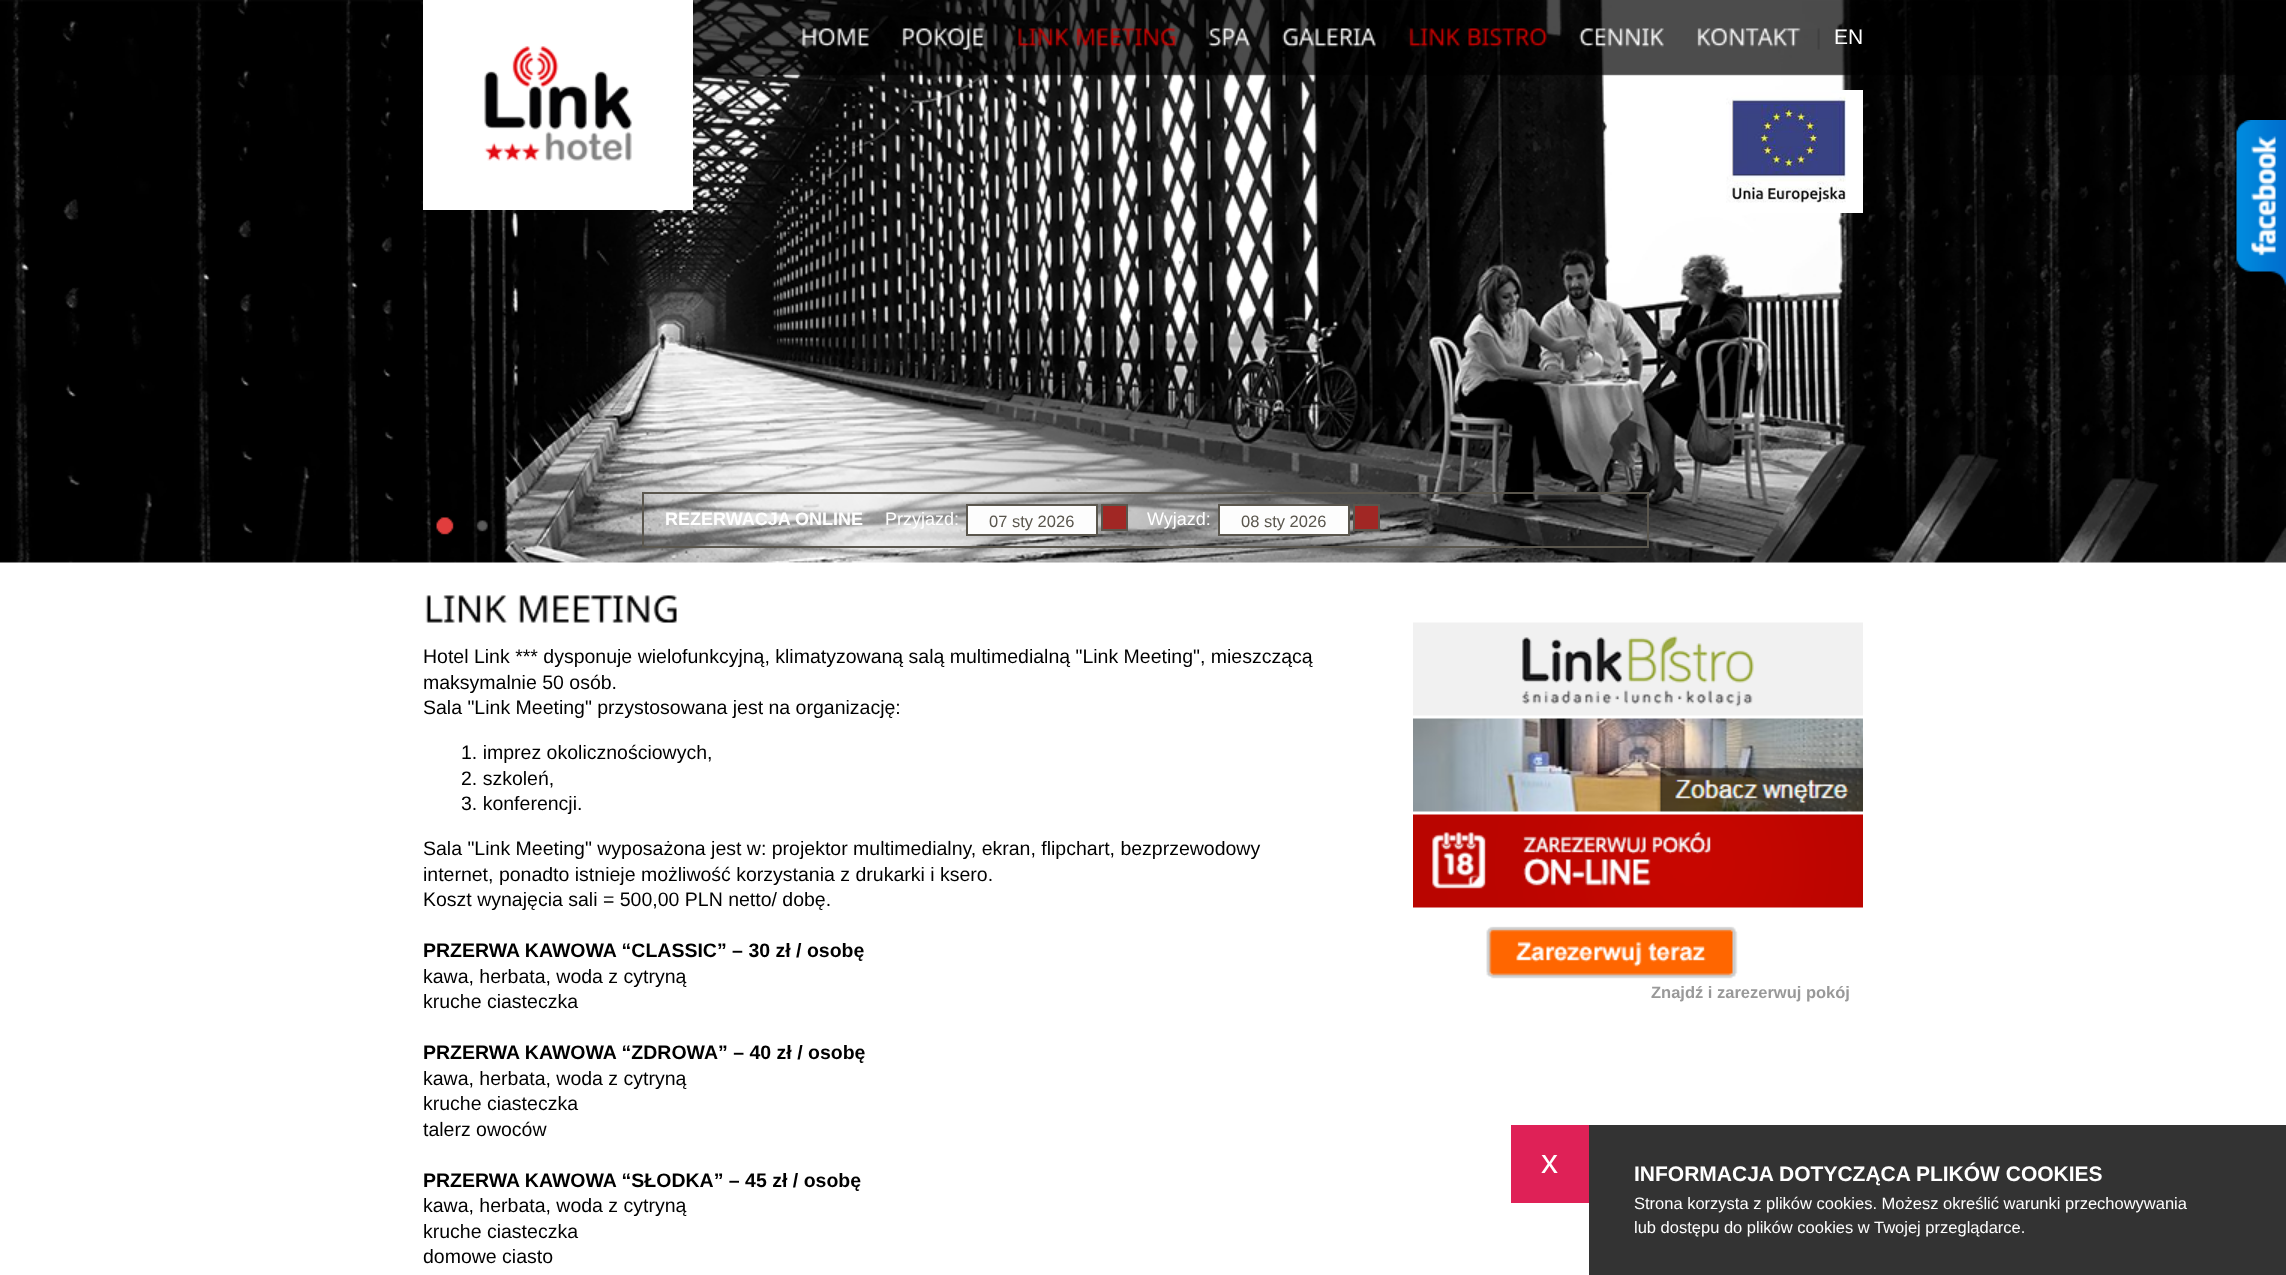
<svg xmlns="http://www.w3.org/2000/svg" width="2286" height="1275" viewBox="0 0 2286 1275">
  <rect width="100%" height="100%" fill="#fff"/>
  <image x="0" y="0" width="2286" height="563" href="img/14.png"/>
  <image x="423" y="0" width="270" height="210" href="img/1.png"/>
  <image x="802" y="28" width="67" height="19" href="img/2.png"/>
  <image x="902" y="28" width="83" height="22" href="img/3.png"/>
  <image x="1018" y="28" width="51" height="19" href="img/4.png"/>
  <image x="1076" y="28" width="101" height="19" href="img/5.png"/>
  <image x="1208" y="28" width="42" height="19" href="img/6.png"/>
  <image x="1282" y="28" width="94" height="19" href="img/7.png"/>
  <image x="1409" y="28" width="51" height="19" href="img/8.png"/>
  <image x="1468" y="28" width="79" height="19" href="img/9.png"/>
  <image x="1579" y="28" width="85" height="19" href="img/10.png"/>
  <image x="1697" y="28" width="104" height="19" href="img/11.png"/>
  <image x="1817" y="28" width="3" height="22" href="img/12.png"/>
  <image x="2236" y="120" width="50" height="167" href="img/13.png"/>
  <image x="1726" y="90" width="137" height="123" href="img/15.png"/>
  <image x="436" y="517" width="18" height="18" href="img/16.png"/>
  <image x="476" y="520" width="12" height="12" href="img/17.png"/>
  <image x="514" y="521" width="11" height="11" href="img/18.png"/>
  <path d="M643 493h1005v54H643z" fill="none" stroke="#5a564d" stroke-width="2"/>
  <path d="M967 505h130v30H967z" fill="#fdfdfd" stroke="#5a564d" stroke-width="2"/>
  <path d="M1102 505h25v25H1102z" fill="#a12724" stroke="#5a564d" stroke-width="2"/>
  <path d="M1219 505h130v30H1219z" fill="#fdfdfd" stroke="#5a564d" stroke-width="2"/>
  <path d="M1354 505h25v25H1354z" fill="#a12724" stroke="#5a564d" stroke-width="2"/>
  <image x="425" y="595" width="83" height="28" href="img/19.png"/>
  <image x="518" y="595" width="159" height="28" href="img/20.png"/>
  <image x="1413" y="622" width="450" height="94" href="img/21.png"/>
  <image x="1413" y="718" width="450" height="94" href="img/22.png"/>
  <image x="1413" y="814" width="450" height="94" href="img/23.png"/>
  <image x="1486" y="926" width="252" height="53" href="img/24.png"/>
  <path d="M1589 1125h697v150H1589z" fill="#333"/>
  <path d="M1511 1125h78v78H1511z" fill="#df2157"/>
  <text x="1834" y="44" font-family="Liberation Sans" font-size="21" fill="#fff">EN</text>
  <text x="665" y="525" font-family="Liberation Sans" font-size="18" font-weight="bold" fill="#fff">REZERWACJA ONLINE</text>
  <text x="885" y="525" font-family="Liberation Sans" font-size="18" fill="#fff">Przyjazd:</text>
  <text x="989" y="527" font-family="Liberation Sans" font-size="16.5" fill="#5a564d">07 sty 2026</text>
  <text x="1147" y="525" font-family="Liberation Sans" font-size="18" fill="#fff">Wyjazd:</text>
  <text x="1241" y="527" font-family="Liberation Sans" font-size="16.5" fill="#5a564d">08 sty 2026</text>
  <g font-family="Liberation Sans" font-size="19.5" fill="#000">
    <text x="423" y="663">Hotel Link *** dysponuje wielofunkcyjną, klimatyzowaną salą multimedialną "Link Meeting", mieszczącą</text>
    <text x="423" y="689">maksymalnie 50 osób.</text>
    <text x="423" y="714">Sala "Link Meeting" przystosowana jest na organizację:</text>
    <text x="461" y="759">1. imprez okolicznościowych,</text>
    <text x="461" y="785">2. szkoleń,</text>
    <text x="461" y="810">3. konferencji.</text>
    <text x="423" y="855">Sala "Link Meeting" wyposażona jest w: projektor multimedialny, ekran, flipchart, bezprzewodowy</text>
    <text x="423" y="881">internet, ponadto istnieje możliwość korzystania z drukarki i ksero.</text>
    <text x="423" y="906">Koszt wynajęcia sali = 500,00 PLN netto/ dobę.</text>
  </g>
  <text x="423" y="957" font-family="Liberation Sans" font-size="19.5" font-weight="bold" fill="#000">PRZERWA KAWOWA “CLASSIC” – 30 zł / osobę</text>
  <g font-family="Liberation Sans" font-size="19.5" fill="#000">
    <text x="423" y="983">kawa, herbata, woda z cytryną</text>
    <text x="423" y="1008">kruche ciasteczka</text>
  </g>
  <text x="423" y="1059" font-family="Liberation Sans" font-size="19.5" font-weight="bold" fill="#000">PRZERWA KAWOWA “ZDROWA” – 40 zł / osobę</text>
  <g font-family="Liberation Sans" font-size="19.5" fill="#000">
    <text x="423" y="1085">kawa, herbata, woda z cytryną</text>
    <text x="423" y="1110">kruche ciasteczka</text>
    <text x="423" y="1136">talerz owoców</text>
  </g>
  <text x="423" y="1187" font-family="Liberation Sans" font-size="19.5" font-weight="bold" fill="#000">PRZERWA KAWOWA “SŁODKA” – 45 zł / osobę</text>
  <g font-family="Liberation Sans" font-size="19.5" fill="#000">
    <text x="423" y="1212">kawa, herbata, woda z cytryną</text>
    <text x="423" y="1238">kruche ciasteczka</text>
    <text x="423" y="1263">domowe ciasto</text>
  </g>
  <text x="1651" y="998" font-family="Liberation Sans" font-size="16.5" font-weight="bold" fill="#999">Znajdź i zarezerwuj pokój</text>
  <text x="1541" y="1173" font-family="Liberation Sans" font-size="34" fill="#fff">x</text>
  <text x="1634" y="1181" font-family="Liberation Sans" font-size="21" font-weight="bold" fill="#fff">INFORMACJA DOTYCZĄCA PLIKÓW COOKIES</text>
  <g font-family="Liberation Sans" font-size="16.5" fill="#fff">
    <text x="1634" y="1209">Strona korzysta z plików cookies. Możesz określić warunki przechowywania</text>
    <text x="1634" y="1233">lub dostępu do plików cookies w Twojej przeglądarce.</text>
  </g>
</svg>
